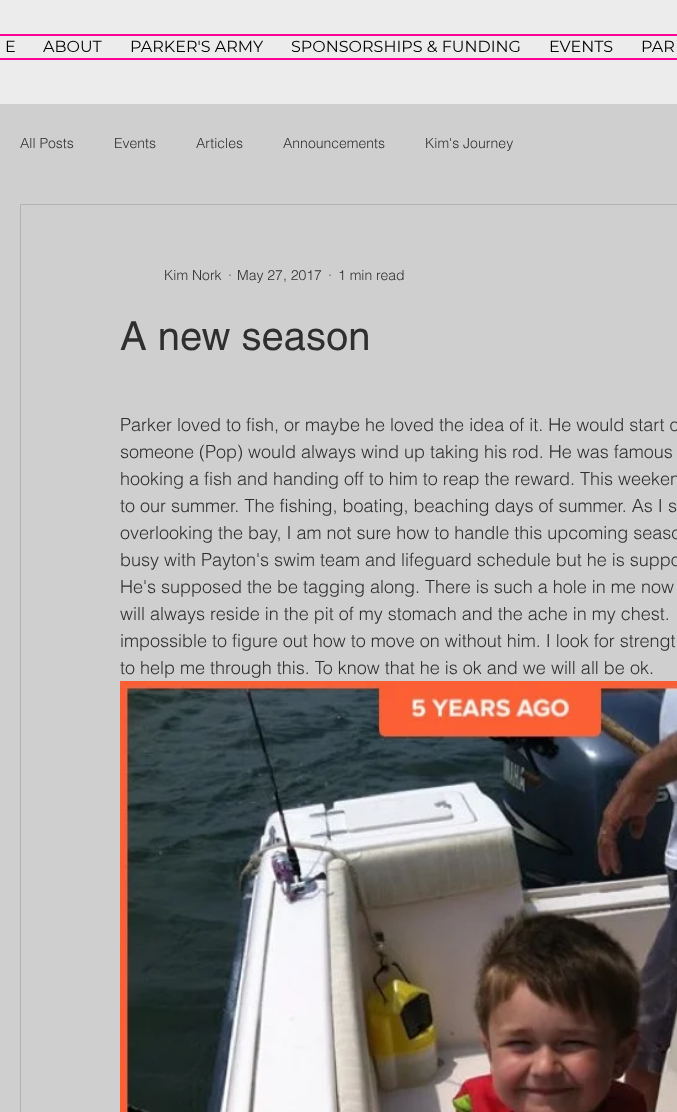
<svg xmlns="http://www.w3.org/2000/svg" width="677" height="1112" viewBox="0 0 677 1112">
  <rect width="100%" height="100%" fill="#cfcfcf"/>
  <path d="M0 0h677v104H0z" fill="#ececec"/>
  <path d="M0 34h677v2H0z" fill="#f09"/>
  <path d="M0 58h677v2H0z" fill="#f09"/>
  <path d="M20.5 204.5h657v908H20.5z" fill="none" stroke="#b2b2b2"/>
  <image x="120" y="681" width="557" height="431" href="img/1.png"/>
  <g font-family="Montserrat" font-size="16" fill="#000">
    <text x="5" y="52">E</text>
    <text x="43" y="52">ABOUT</text>
    <text x="130" y="52">PARKER'S ARMY</text>
    <text x="291" y="52">SPONSORSHIPS &amp; FUNDING</text>
    <text x="549" y="52">EVENTS</text>
    <text x="641" y="52">PAR</text>
  </g>
  <g font-family="helvetica" font-size="14" font-weight="300" fill="#2f2f2f">
    <text x="20" y="148">All Posts</text>
    <text x="114" y="148">Events</text>
    <text x="196" y="148">Articles</text>
    <text x="283" y="148">Announcements</text>
    <text x="425" y="148">Kim's Journey</text>
    <text x="164" y="280">Kim Nork</text>
    <text x="228" y="280">·</text>
    <text x="237" y="280">May 27, 2017</text>
    <text x="328" y="280">·</text>
    <text x="338" y="280">1 min read</text>
  </g>
  <text x="120" y="350" font-family="helvetica" font-size="40" fill="#2f2f2f">A new season</text>
  <g font-family="helvetica" font-size="18" font-weight="300" fill="#2f2f2f">
    <text x="120" y="431">Parker loved to fish, or maybe he loved the idea of it. He would start o</text>
    <text x="120" y="458">someone (Pop) would always wind up taking his rod. He was famous</text>
    <text x="120" y="485">hooking a fish and handing off to him to reap the reward. This weeken</text>
    <text x="120" y="512">to our summer. The fishing, boating, beaching days of summer. As I s</text>
    <text x="120" y="539">overlooking the bay, I am not sure how to handle this upcoming seaso</text>
    <text x="120" y="566">busy with Payton's swim team and lifeguard schedule but he is suppo</text>
    <text x="120" y="593">He's supposed the be tagging along. There is such a hole in me now</text>
    <text x="120" y="620">will always reside in the pit of my stomach and the ache in my chest.</text>
    <text x="120" y="647">impossible to figure out how to move on without him. I look for strengt</text>
    <text x="120" y="674">to help me through this. To know that he is ok and we will all be ok.</text>
  </g>
</svg>
